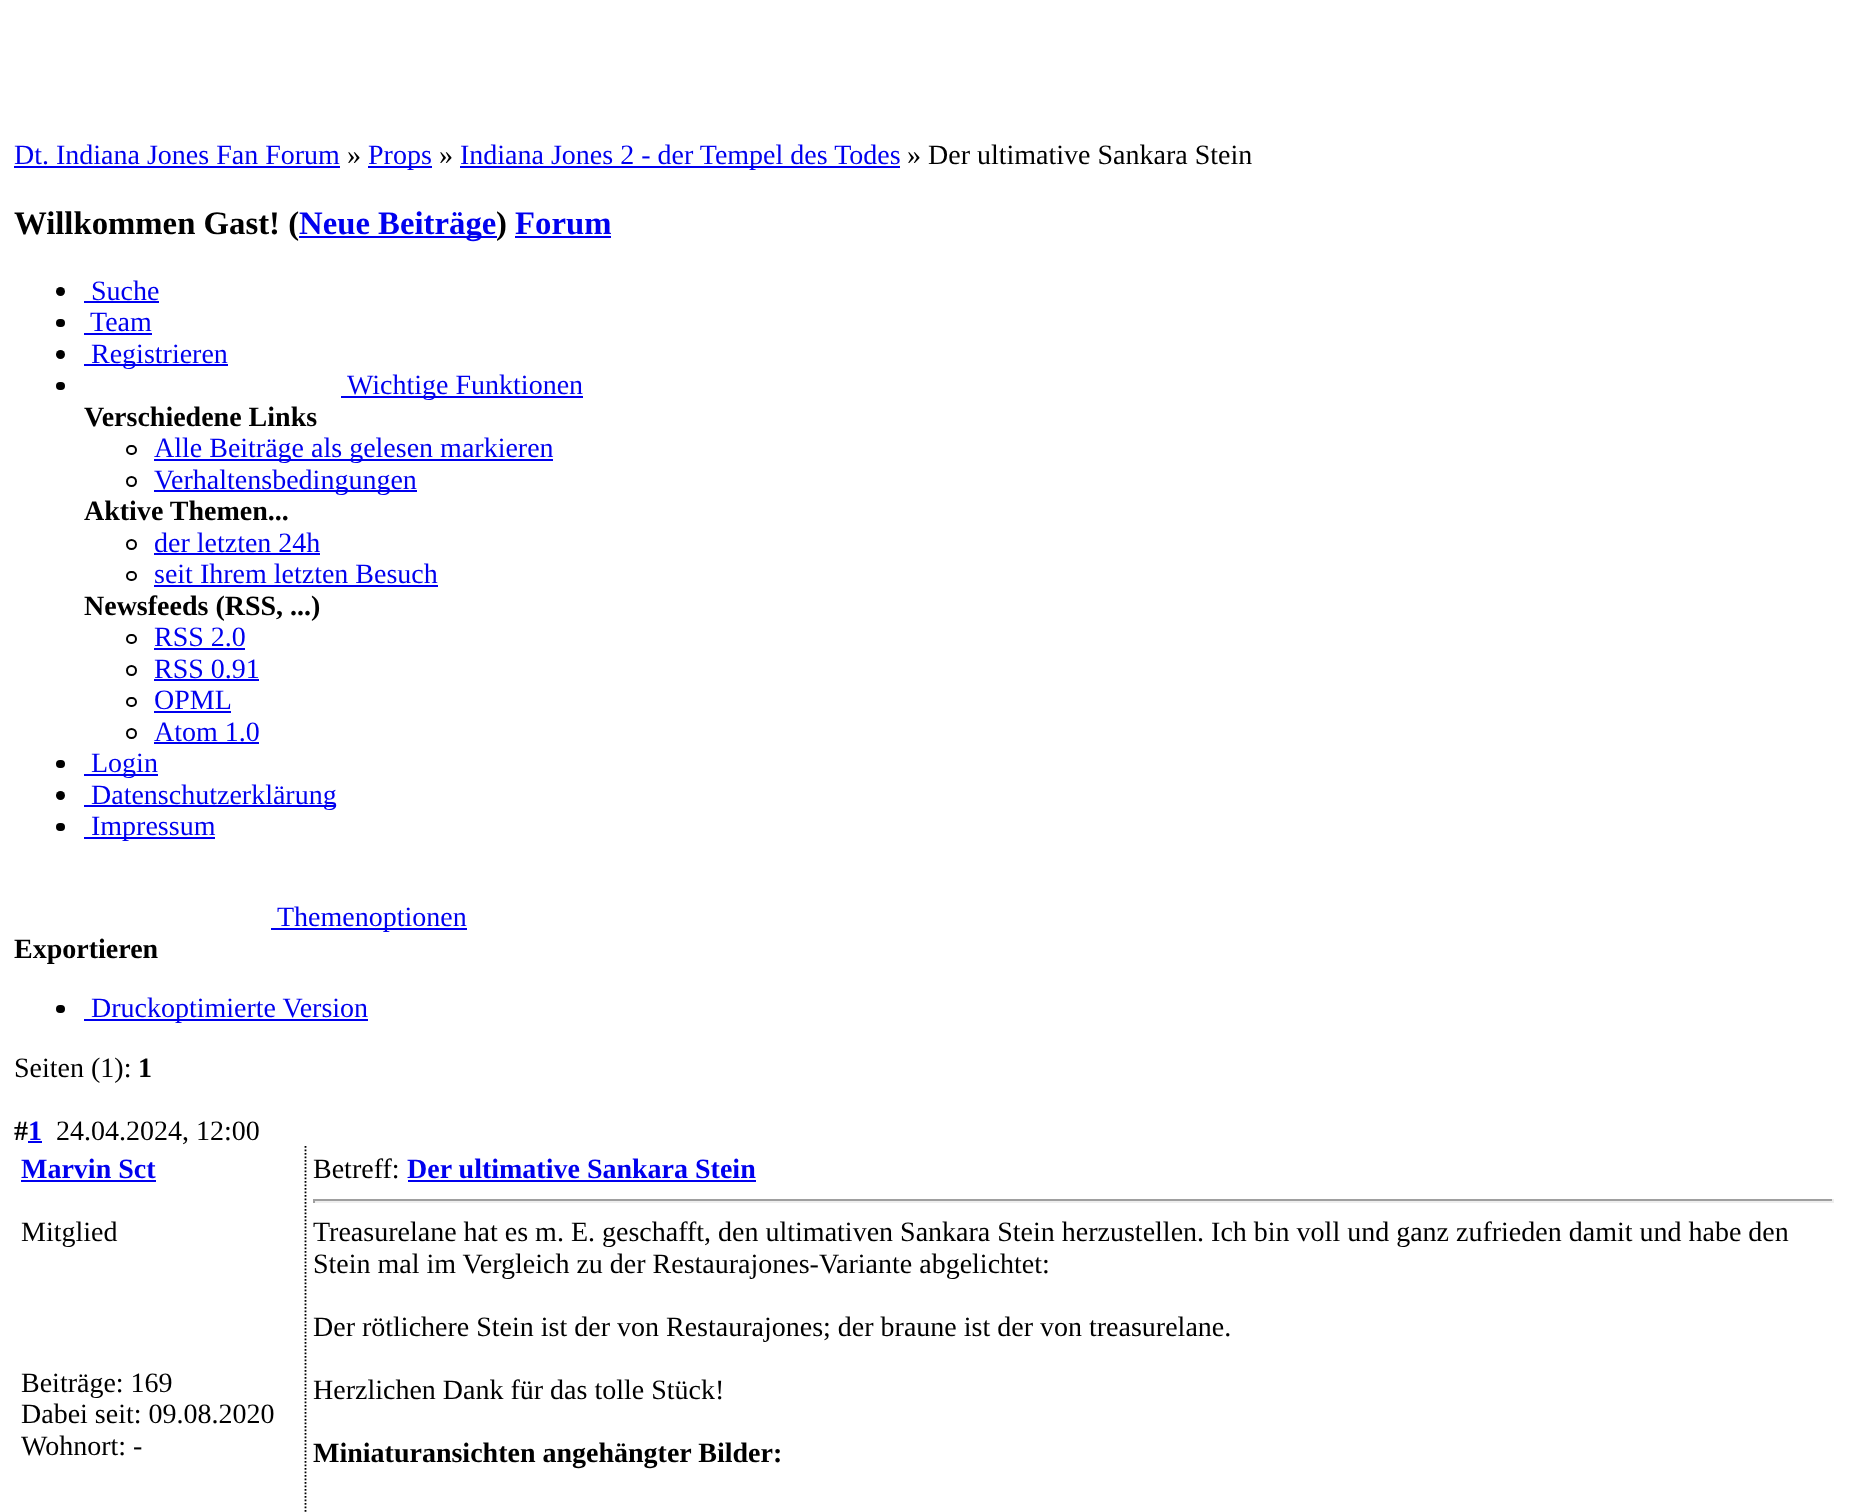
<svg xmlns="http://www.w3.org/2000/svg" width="1854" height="1512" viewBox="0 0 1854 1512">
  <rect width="100%" height="100%" fill="#fff"/>
  <path d="M14 166h326v2H14z" fill="#00e"/>
  <path d="M368 166h64v2H368z" fill="#00e"/>
  <path d="M460 166h440v2H460z" fill="#00e"/>
  <path d="M299 236h198v2H299z" fill="#00e"/>
  <path d="M515 236h96v2H515z" fill="#00e"/>
  <circle cx="60.5" cy="291.5" r="4.5" fill="#000"/>
  <path d="M84 301h75v2H84z" fill="#00e"/>
  <rect x="56" y="319" width="9" height="8" rx="4" fill="#000"/>
  <path d="M84 333h68v2H84z" fill="#00e"/>
  <circle cx="60.5" cy="354.5" r="4.5" fill="#000"/>
  <path d="M84 364h144v2H84z" fill="#00e"/>
  <rect x="56" y="382" width="9" height="8" rx="4" fill="#000"/>
  <path d="M341 396h242v2H341z" fill="#00e"/>
  <rect x="127" y="446" width="9" height="8" rx="4" fill="none" stroke="#000" stroke-width="2"/>
  <path d="M154 459h399v2H154z" fill="#00e"/>
  <circle cx="131.5" cy="481.5" r="4.5" fill="none" stroke="#000" stroke-width="2"/>
  <path d="M154 490h263v2H154z" fill="#00e"/>
  <circle cx="131.5" cy="544.5" r="4.5" fill="none" stroke="#000" stroke-width="2"/>
  <path d="M154 553h166v2H154z" fill="#00e"/>
  <rect x="127" y="572" width="9" height="8" rx="4" fill="none" stroke="#000" stroke-width="2"/>
  <path d="M154 585h284v2H154z" fill="#00e"/>
  <rect x="127" y="635" width="9" height="8" rx="4" fill="none" stroke="#000" stroke-width="2"/>
  <path d="M154 648h91v2H154z" fill="#00e"/>
  <circle cx="131.5" cy="670.5" r="4.5" fill="none" stroke="#000" stroke-width="2"/>
  <path d="M154 679h105v2H154z" fill="#00e"/>
  <rect x="127" y="698" width="9" height="8" rx="4" fill="none" stroke="#000" stroke-width="2"/>
  <path d="M154 711h77v2H154z" fill="#00e"/>
  <circle cx="131.5" cy="733.5" r="4.5" fill="none" stroke="#000" stroke-width="2"/>
  <path d="M154 742h105v2H154z" fill="#00e"/>
  <rect x="56" y="760" width="9" height="8" rx="4" fill="#000"/>
  <path d="M84 774h74v2H84z" fill="#00e"/>
  <circle cx="60.5" cy="795.5" r="4.5" fill="#000"/>
  <path d="M84 805h252v2H84z" fill="#00e"/>
  <rect x="56" y="823" width="9" height="8" rx="4" fill="#000"/>
  <path d="M84 837h131v2H84z" fill="#00e"/>
  <path d="M271 928h196v2H271z" fill="#00e"/>
  <rect x="56" y="1005" width="9" height="8" rx="4" fill="#000"/>
  <path d="M84 1019h284v2H84z" fill="#00e"/>
  <path d="M28 1141h14v2H28z" fill="#00e"/>
  <path d="M305.5 1146V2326" fill="none" stroke="#000" stroke-width="1.8" stroke-dasharray="1.75 1.75"/>
  <path d="M21 1180h135v2H21z" fill="#00e"/>
  <path d="M408 1180h348v2H408z" fill="#00e"/>
  <path d="M313 1199h1521v2H313z" fill="#9f9f9f"/>
  <path d="M1832 1199h2v4H1832z" fill="#eee"/>
  <path d="M313 1201h1521v2H313z" fill="#eee"/>
  <path d="M313 1199h2v4H313z" fill="#9f9f9f"/>
  <text x="14" y="164" font-family="Liberation Serif" font-size="28" fill="#00e">Dt. Indiana Jones Fan Forum</text>
  <text x="347" y="164" font-family="Liberation Serif" font-size="28" fill="#000">»</text>
  <text x="368" y="164" font-family="Liberation Serif" font-size="28" fill="#00e">Props</text>
  <text x="439" y="164" font-family="Liberation Serif" font-size="28" fill="#000">»</text>
  <text x="460" y="164" font-family="Liberation Serif" font-size="28" fill="#00e">Indiana Jones 2 - der Tempel des Todes</text>
  <text x="907" y="164" font-family="Liberation Serif" font-size="28" fill="#000">» Der ultimative Sankara Stein</text>
  <text x="14" y="234" font-family="Liberation Serif" font-size="32.75" font-weight="bold" fill="#000">Willkommen Gast! (</text>
  <text x="299" y="234" font-family="Liberation Serif" font-size="32.75" font-weight="bold" fill="#00e">Neue Beiträge</text>
  <text x="496" y="234" font-family="Liberation Serif" font-size="32.75" font-weight="bold" fill="#000">)</text>
  <text x="515" y="234" font-family="Liberation Serif" font-size="32.75" font-weight="bold" fill="#00e">Forum</text>
  <g font-family="Liberation Serif" font-size="28" fill="#00e">
    <text x="91" y="300">Suche</text>
    <text x="90" y="331">Team</text>
    <text x="91" y="363">Registrieren</text>
    <text x="347" y="394">Wichtige Funktionen</text>
  </g>
  <text x="84" y="426" font-family="Liberation Serif" font-size="28" font-weight="bold" fill="#000">Verschiedene Links</text>
  <g font-family="Liberation Serif" font-size="28" fill="#00e">
    <text x="154" y="457">Alle Beiträge als gelesen markieren</text>
    <text x="154" y="489">Verhaltensbedingungen</text>
  </g>
  <text x="84" y="520" font-family="Liberation Serif" font-size="28" font-weight="bold" fill="#000">Aktive Themen...</text>
  <g font-family="Liberation Serif" font-size="28" fill="#00e">
    <text x="154" y="552">der letzten 24h</text>
    <text x="154" y="583">seit Ihrem letzten Besuch</text>
  </g>
  <text x="84" y="615" font-family="Liberation Serif" font-size="28" font-weight="bold" fill="#000">Newsfeeds (RSS, ...)</text>
  <g font-family="Liberation Serif" font-size="28" fill="#00e">
    <text x="154" y="646">RSS 2.0</text>
    <text x="154" y="678">RSS 0.91</text>
    <text x="154" y="709">OPML</text>
    <text x="154" y="741">Atom 1.0</text>
    <text x="91" y="772">Login</text>
    <text x="91" y="804">Datenschutzerklärung</text>
    <text x="91" y="835">Impressum</text>
    <text x="277" y="926">Themenoptionen</text>
  </g>
  <text x="14" y="958" font-family="Liberation Serif" font-size="28" font-weight="bold" fill="#000">Exportieren</text>
  <text x="91" y="1017" font-family="Liberation Serif" font-size="28" fill="#00e">Druckoptimierte Version</text>
  <text x="14" y="1077" font-family="Liberation Serif" font-size="28" fill="#000">Seiten (1):</text>
  <g font-family="Liberation Serif" font-size="28" font-weight="bold" fill="#000">
    <text x="138" y="1077">1</text>
    <text x="14" y="1140">#</text>
  </g>
  <text x="28" y="1140" font-family="Liberation Serif" font-size="28" font-weight="bold" fill="#00e">1</text>
  <text x="56" y="1140" font-family="Liberation Serif" font-size="28" fill="#000">24.04.2024, 12:00</text>
  <text x="21" y="1178" font-family="Liberation Serif" font-size="28" font-weight="bold" fill="#00e">Marvin Sct</text>
  <g font-family="Liberation Serif" font-size="28" fill="#000">
    <text x="21" y="1241">Mitglied</text>
    <text x="21" y="1392">Beiträge: 169</text>
    <text x="21" y="1423">Dabei seit: 09.08.2020</text>
    <text x="21" y="1455">Wohnort: -</text>
    <text x="313" y="1178">Betreff:</text>
  </g>
  <text x="407" y="1178" font-family="Liberation Serif" font-size="28" font-weight="bold" fill="#00e">Der ultimative Sankara Stein</text>
  <g font-family="Liberation Serif" font-size="28" fill="#000">
    <text x="313" y="1241">Treasurelane hat es m. E. geschafft, den ultimativen Sankara Stein herzustellen. Ich bin voll und ganz zufrieden damit und habe den</text>
    <text x="313" y="1273">Stein mal im Vergleich zu der Restaurajones-Variante abgelichtet:</text>
    <text x="313" y="1336">Der rötlichere Stein ist der von Restaurajones; der braune ist der von treasurelane.</text>
    <text x="313" y="1399">Herzlichen Dank für das tolle Stück!</text>
  </g>
  <text x="313" y="1462" font-family="Liberation Serif" font-size="28" font-weight="bold" fill="#000">Miniaturansichten angehängter Bilder:</text>
</svg>
